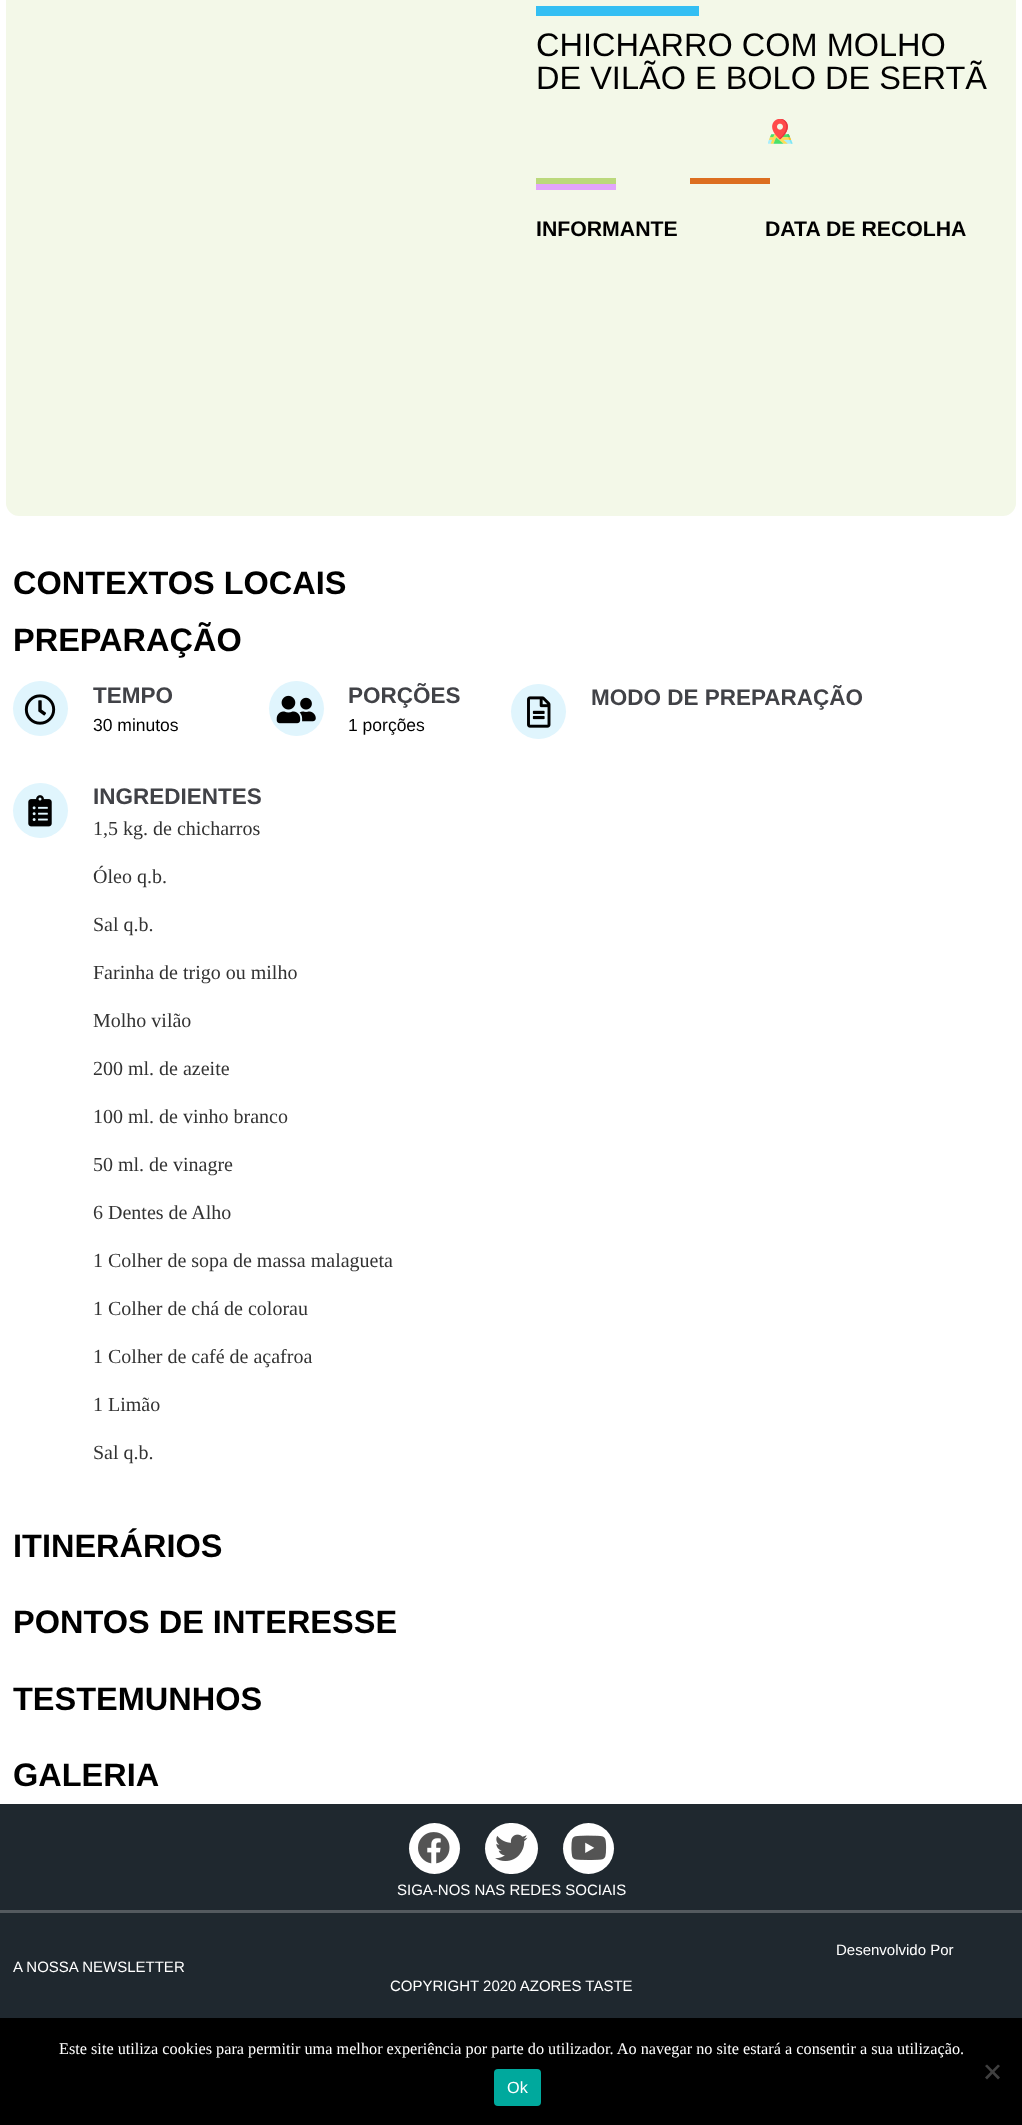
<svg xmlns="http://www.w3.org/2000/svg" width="1022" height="2125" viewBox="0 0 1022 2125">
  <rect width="100%" height="100%" fill="#fff"/>
  <path d="M19-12H511V516H19C12 516 6 510 6 503V1C6-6 12-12 19-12Z" fill="#f3f8e8"/>
  <path d="M511-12H1003C1010-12 1016-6 1016 1V503C1016 510 1010 516 1003 516H511Z" fill="#f3f8e8"/>
  <path d="M536 6h163v10H536z" fill="#33bff3"/>
  <image x="768" y="119" width="25" height="25" href="img/1.png"/>
  <path d="M536 178h80v6H536z" fill="#bbd97c"/>
  <path d="M536 184h80v6H536z" fill="#e2a4fd"/>
  <path d="M690 178h80v6H690z" fill="#dc6f20"/>
  <circle cx="40.5" cy="708.5" r="27.5" fill="#e0f5fd"/>
  <image x="24" y="694" width="32" height="31" href="img/2.png"/>
  <circle cx="296.5" cy="708.5" r="27.5" fill="#e0f5fd"/>
  <image x="276" y="695" width="40" height="29" href="img/3.png"/>
  <circle cx="40.5" cy="810.5" r="27.5" fill="#e0f5fd"/>
  <image x="28" y="795" width="24" height="32" href="img/4.png"/>
  <circle cx="538.5" cy="711.5" r="27.5" fill="#e0f5fd"/>
  <image x="527" y="696" width="24" height="32" href="img/5.png"/>
  <path d="M0 1804h1022v214H0z" fill="#1f282f"/>
  <circle cx="434.5" cy="1848.5" r="25.5" fill="#fff"/>
  <image x="418" y="1832" width="32" height="32" href="img/6.png"/>
  <rect x="485" y="1823" width="53" height="51" rx="25.5" fill="#fff"/>
  <image x="495" y="1834" width="33" height="27" href="img/7.png"/>
  <circle cx="588.5" cy="1848.5" r="25.5" fill="#fff"/>
  <image x="571" y="1835" width="36" height="25" href="img/8.png"/>
  <path d="M0 1910h1022v3H0z" fill="#545a5f"/>
  <path d="M0 2018h1022v107H0z" fill="#000"/>
  <path d="M998 2064.5L1000 2066L987 2079.5L985 2077.5Z" fill="#404040"/>
  <path d="M985 2066L987 2064.5L1000 2077.5L998 2079.5Z" fill="#404040"/>
  <rect x="494" y="2069" width="47" height="37" rx="4" fill="#00a99d"/>
  <g font-family="Liberation Sans" font-size="32.5" fill="#000">
    <text x="536" y="56">CHICHARRO COM MOLHO</text>
    <text x="536" y="89">DE VILÃO E BOLO DE SERTÃ</text>
  </g>
  <g font-family="Liberation Sans" font-size="21.25" font-weight="bold" fill="#000">
    <text x="536" y="236">INFORMANTE</text>
    <text x="765" y="236">DATA DE RECOLHA</text>
  </g>
  <g font-family="Liberation Sans" font-size="32.5" font-weight="bold" fill="#000">
    <text x="13" y="594">CONTEXTOS LOCAIS</text>
    <text x="13" y="651">PREPARAÇÃO</text>
  </g>
  <text x="93" y="703" font-family="Liberation Sans" font-size="22.5" font-weight="bold" fill="#414247">TEMPO</text>
  <text x="93" y="731" font-family="Liberation Sans" font-size="17.5" fill="#000">30 minutos</text>
  <text x="348" y="703" font-family="Liberation Sans" font-size="22.5" font-weight="bold" fill="#414247">PORÇÕES</text>
  <text x="348" y="731" font-family="Liberation Sans" font-size="17.5" fill="#000">1 porções</text>
  <text x="93" y="804" font-family="Liberation Sans" font-size="22.5" font-weight="bold" fill="#414247">INGREDIENTES</text>
  <g font-family="Liberation Serif" font-size="20" fill="#333">
    <text x="93" y="835">1,5 kg. de chicharros</text>
    <text x="93" y="883">Óleo q.b.</text>
    <text x="93" y="931">Sal q.b.</text>
    <text x="93" y="979">Farinha de trigo ou milho</text>
    <text x="93" y="1027">Molho vilão</text>
    <text x="93" y="1075">200 ml. de azeite</text>
    <text x="93" y="1123">100 ml. de vinho branco</text>
    <text x="93" y="1171">50 ml. de vinagre</text>
    <text x="93" y="1219">6 Dentes de Alho</text>
    <text x="93" y="1267">1 Colher de sopa de massa malagueta</text>
    <text x="93" y="1315">1 Colher de chá de colorau</text>
    <text x="93" y="1363">1 Colher de café de açafroa</text>
    <text x="93" y="1411">1 Limão</text>
    <text x="93" y="1459">Sal q.b.</text>
  </g>
  <text x="591" y="705" font-family="Liberation Sans" font-size="22.5" font-weight="bold" fill="#414247">MODO DE PREPARAÇÃO</text>
  <g font-family="Liberation Sans" font-size="32.5" font-weight="bold" fill="#000">
    <text x="13" y="1557">ITINERÁRIOS</text>
    <text x="13" y="1633">PONTOS DE INTERESSE</text>
    <text x="13" y="1710">TESTEMUNHOS</text>
    <text x="13" y="1786">GALERIA</text>
  </g>
  <g font-family="Liberation Sans" font-size="15" fill="#fff">
    <text x="397" y="1895">SIGA-NOS NAS REDES SOCIAIS</text>
    <text x="836" y="1955">Desenvolvido Por</text>
    <text x="13" y="1972">A NOSSA NEWSLETTER</text>
    <text x="390" y="1991">COPYRIGHT 2020 AZORES TASTE</text>
  </g>
  <text x="59" y="2054" font-family="Liberation Serif" font-size="16.25" fill="#fff">Este site utiliza cookies para permitir uma melhor experiência por parte do utilizador. Ao navegar no site estará a consentir a sua utilização.</text>
  <text x="507" y="2093" font-family="Liberation Sans" font-size="16.25" fill="#fff">Ok</text>
</svg>
